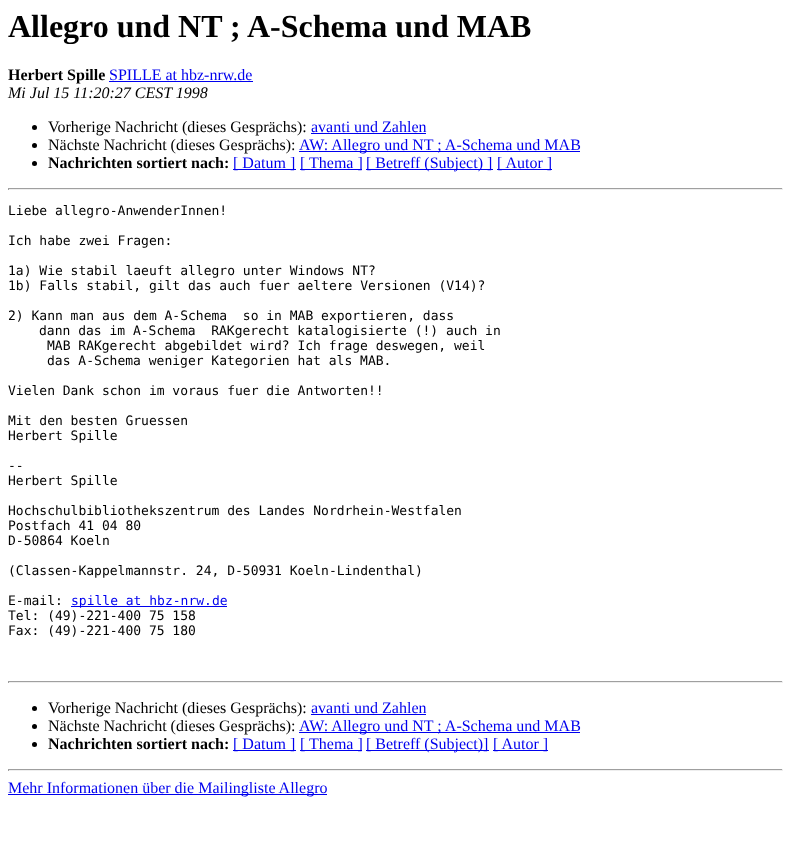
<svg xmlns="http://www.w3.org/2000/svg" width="791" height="852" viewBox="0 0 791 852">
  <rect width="100%" height="100%" fill="#fff"/>
  <path d="M109 81h144v1H109z" fill="#00e"/>
  <circle cx="34.5" cy="127.5" r="2.5" fill="#000"/>
  <path d="M311 133h115v1H311z" fill="#00e"/>
  <circle cx="34.5" cy="145.5" r="2.5" fill="#000"/>
  <path d="M299 151h281v1H299z" fill="#00e"/>
  <circle cx="34.5" cy="163.5" r="2.5" fill="#000"/>
  <path d="M233 169h63v1H233z" fill="#00e"/>
  <path d="M300 169h62v1H300z" fill="#00e"/>
  <path d="M366 169h127v1H366z" fill="#00e"/>
  <path d="M497 169h55v1H497z" fill="#00e"/>
  <path d="M8 188h775v1H8z" fill="#9f9f9f"/>
  <path d="M782 188h1v2H782z" fill="#eee"/>
  <path d="M8 189h775v1H8z" fill="#eee"/>
  <path d="M8 188h1v2H8z" fill="#9f9f9f"/>
  <path d="M71 606h156v1H71z" fill="#00e"/>
  <path d="M8 681h775v1H8z" fill="#9f9f9f"/>
  <path d="M782 681h1v2H782z" fill="#eee"/>
  <path d="M8 682h775v1H8z" fill="#eee"/>
  <path d="M8 681h1v2H8z" fill="#9f9f9f"/>
  <circle cx="34.5" cy="708.5" r="2.5" fill="#000"/>
  <path d="M311 714h115v1H311z" fill="#00e"/>
  <circle cx="34.5" cy="726.5" r="2.5" fill="#000"/>
  <path d="M299 732h281v1H299z" fill="#00e"/>
  <circle cx="34.5" cy="744.5" r="2.5" fill="#000"/>
  <path d="M233 750h63v1H233z" fill="#00e"/>
  <path d="M300 750h62v1H300z" fill="#00e"/>
  <path d="M366 750h123v1H366z" fill="#00e"/>
  <path d="M493 750h55v1H493z" fill="#00e"/>
  <path d="M8 769h775v1H8z" fill="#9f9f9f"/>
  <path d="M782 769h1v2H782z" fill="#eee"/>
  <path d="M8 770h775v1H8z" fill="#eee"/>
  <path d="M8 769h1v2H8z" fill="#9f9f9f"/>
  <path d="M8 794h319v1H8z" fill="#00e"/>
  <text x="8" y="37" font-family="Liberation Serif" font-size="32" font-weight="bold" fill="#000">Allegro und NT ; A-Schema und MAB</text>
  <text x="8" y="80" font-family="Liberation Serif" font-size="16" font-weight="bold" fill="#000">Herbert Spille</text>
  <text x="109" y="80" font-family="Liberation Serif" font-size="16" fill="#00e">SPILLE at hbz-nrw.de</text>
  <text x="8" y="98" font-family="Liberation Serif" font-size="16" font-style="italic" fill="#000">Mi Jul 15 11:20:27 CEST 1998</text>
  <text x="48" y="132" font-family="Liberation Serif" font-size="16" fill="#000">Vorherige Nachricht (dieses Gesprächs):</text>
  <text x="311" y="132" font-family="Liberation Serif" font-size="16" fill="#00e">avanti und Zahlen</text>
  <text x="48" y="150" font-family="Liberation Serif" font-size="16" fill="#000">Nächste Nachricht (dieses Gesprächs):</text>
  <text x="299" y="150" font-family="Liberation Serif" font-size="16" fill="#00e">AW: Allegro und NT ; A-Schema und MAB</text>
  <text x="48" y="168" font-family="Liberation Serif" font-size="16" font-weight="bold" fill="#000">Nachrichten sortiert nach:</text>
  <g font-family="Liberation Serif" font-size="16" fill="#00e">
    <text x="233" y="168">[ Datum ]</text>
    <text x="300" y="168">[ Thema ]</text>
    <text x="366" y="168">[ Betreff (Subject) ]</text>
    <text x="497" y="168">[ Autor ]</text>
  </g>
  <g font-family="DejaVu Sans Mono" font-size="13" fill="#000">
    <text x="8" y="215">Liebe allegro-AnwenderInnen!</text>
    <text x="8" y="245">Ich habe zwei Fragen:</text>
    <text x="8" y="275">1a) Wie stabil laeuft allegro unter Windows NT?</text>
    <text x="8" y="290">1b) Falls stabil, gilt das auch fuer aeltere Versionen (V14)?</text>
    <text x="8" y="320" xml:space="preserve">2) Kann man aus dem A-Schema  so in MAB exportieren, dass</text>
    <text x="39" y="335" xml:space="preserve">dann das im A-Schema  RAKgerecht katalogisierte (!) auch in</text>
    <text x="47" y="350">MAB RAKgerecht abgebildet wird? Ich frage deswegen, weil</text>
    <text x="47" y="365">das A-Schema weniger Kategorien hat als MAB.</text>
    <text x="8" y="395">Vielen Dank schon im voraus fuer die Antworten!!</text>
    <text x="8" y="425">Mit den besten Gruessen</text>
    <text x="8" y="440">Herbert Spille</text>
    <text x="8" y="470">--</text>
    <text x="8" y="485">Herbert Spille</text>
    <text x="8" y="515">Hochschulbibliothekszentrum des Landes Nordrhein-Westfalen</text>
    <text x="8" y="530">Postfach 41 04 80</text>
    <text x="8" y="545">D-50864 Koeln</text>
    <text x="8" y="575">(Classen-Kappelmannstr. 24, D-50931 Koeln-Lindenthal)</text>
    <text x="8" y="605">E-mail:</text>
  </g>
  <text x="71" y="605" font-family="DejaVu Sans Mono" font-size="13" fill="#00e">spille at hbz-nrw.de</text>
  <g font-family="DejaVu Sans Mono" font-size="13" fill="#000">
    <text x="8" y="620">Tel: (49)-221-400 75 158</text>
    <text x="8" y="635">Fax: (49)-221-400 75 180</text>
  </g>
  <text x="48" y="713" font-family="Liberation Serif" font-size="16" fill="#000">Vorherige Nachricht (dieses Gesprächs):</text>
  <text x="311" y="713" font-family="Liberation Serif" font-size="16" fill="#00e">avanti und Zahlen</text>
  <text x="48" y="731" font-family="Liberation Serif" font-size="16" fill="#000">Nächste Nachricht (dieses Gesprächs):</text>
  <text x="299" y="731" font-family="Liberation Serif" font-size="16" fill="#00e">AW: Allegro und NT ; A-Schema und MAB</text>
  <text x="48" y="749" font-family="Liberation Serif" font-size="16" font-weight="bold" fill="#000">Nachrichten sortiert nach:</text>
  <g font-family="Liberation Serif" font-size="16" fill="#00e">
    <text x="233" y="749">[ Datum ]</text>
    <text x="300" y="749">[ Thema ]</text>
    <text x="366" y="749">[ Betreff (Subject)]</text>
    <text x="493" y="749">[ Autor ]</text>
    <text x="8" y="793">Mehr Informationen über die Mailingliste Allegro</text>
  </g>
</svg>
